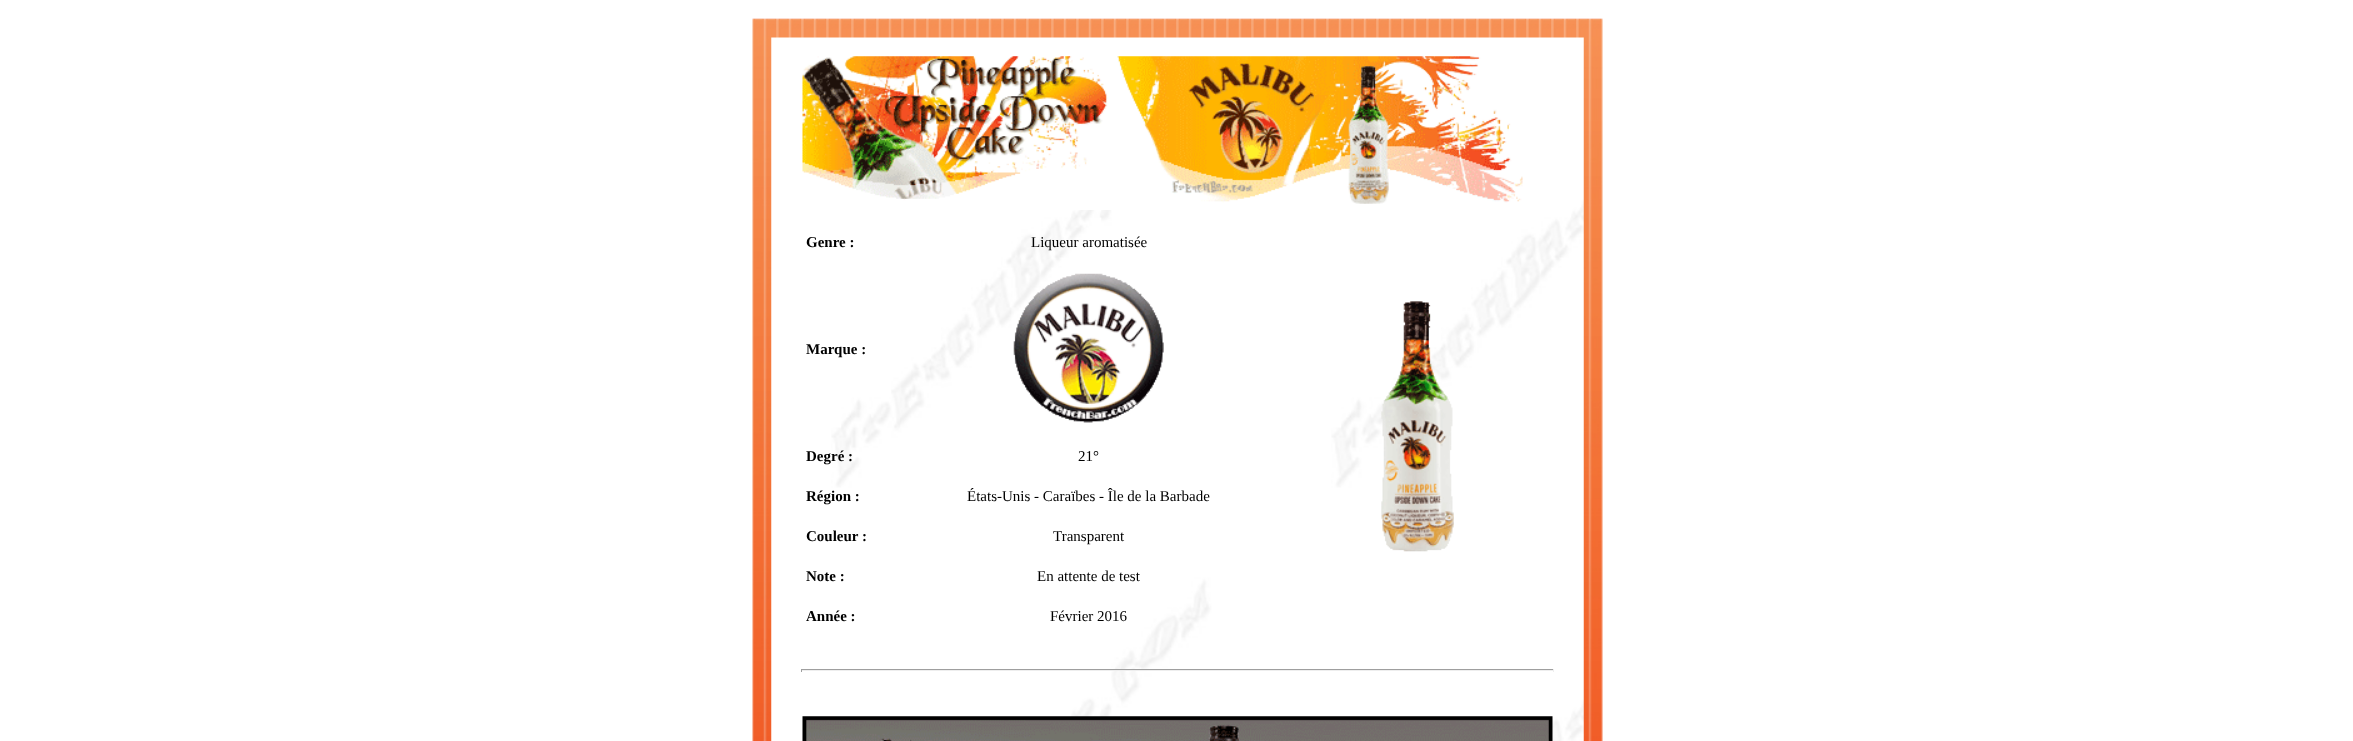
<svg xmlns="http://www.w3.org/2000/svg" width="2353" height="741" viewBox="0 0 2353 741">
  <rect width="100%" height="100%" fill="#fff"/>
  <image x="752" y="18" width="851" height="723" href="img/1.png"/>
  <image x="771" y="37" width="813" height="704" href="img/2.png"/>
  <image x="802" y="56" width="721" height="154" href="img/3.png"/>
  <image x="1013" y="273" width="151" height="150" href="img/4.png"/>
  <image x="1381" y="301" width="73" height="251" href="img/5.png"/>
  <path d="M801 669h753v1H801z" fill="#9f9f9f"/>
  <path d="M1553 669h1v3H1553z" fill="#eee"/>
  <path d="M801 670h753v1H801z" fill="#eee"/>
  <path d="M801 669h1v3H801z" fill="#9f9f9f"/>
  <image x="802" y="716" width="751" height="25" href="img/6.png"/>
  <text x="806" y="247" font-family="Liberation Serif" font-size="15" font-weight="bold" fill="#000">Genre :</text>
  <text x="1031" y="247" font-family="Liberation Serif" font-size="15" fill="#000">Liqueur aromatisée</text>
  <g font-family="Liberation Serif" font-size="15" font-weight="bold" fill="#000">
    <text x="806" y="354">Marque :</text>
    <text x="806" y="461">Degré :</text>
  </g>
  <text x="1078" y="461" font-family="Liberation Serif" font-size="15" fill="#000">21°</text>
  <text x="806" y="501" font-family="Liberation Serif" font-size="15" font-weight="bold" fill="#000">Région :</text>
  <text x="967" y="501" font-family="Liberation Serif" font-size="15" fill="#000">États-Unis - Caraïbes - Île de la Barbade</text>
  <text x="806" y="541" font-family="Liberation Serif" font-size="15" font-weight="bold" fill="#000">Couleur :</text>
  <text x="1053" y="541" font-family="Liberation Serif" font-size="15" fill="#000">Transparent</text>
  <text x="806" y="581" font-family="Liberation Serif" font-size="15" font-weight="bold" fill="#000">Note :</text>
  <text x="1037" y="581" font-family="Liberation Serif" font-size="15" fill="#000">En attente de test</text>
  <text x="806" y="621" font-family="Liberation Serif" font-size="15" font-weight="bold" fill="#000">Année :</text>
  <text x="1050" y="621" font-family="Liberation Serif" font-size="15" fill="#000">Février 2016</text>
</svg>
